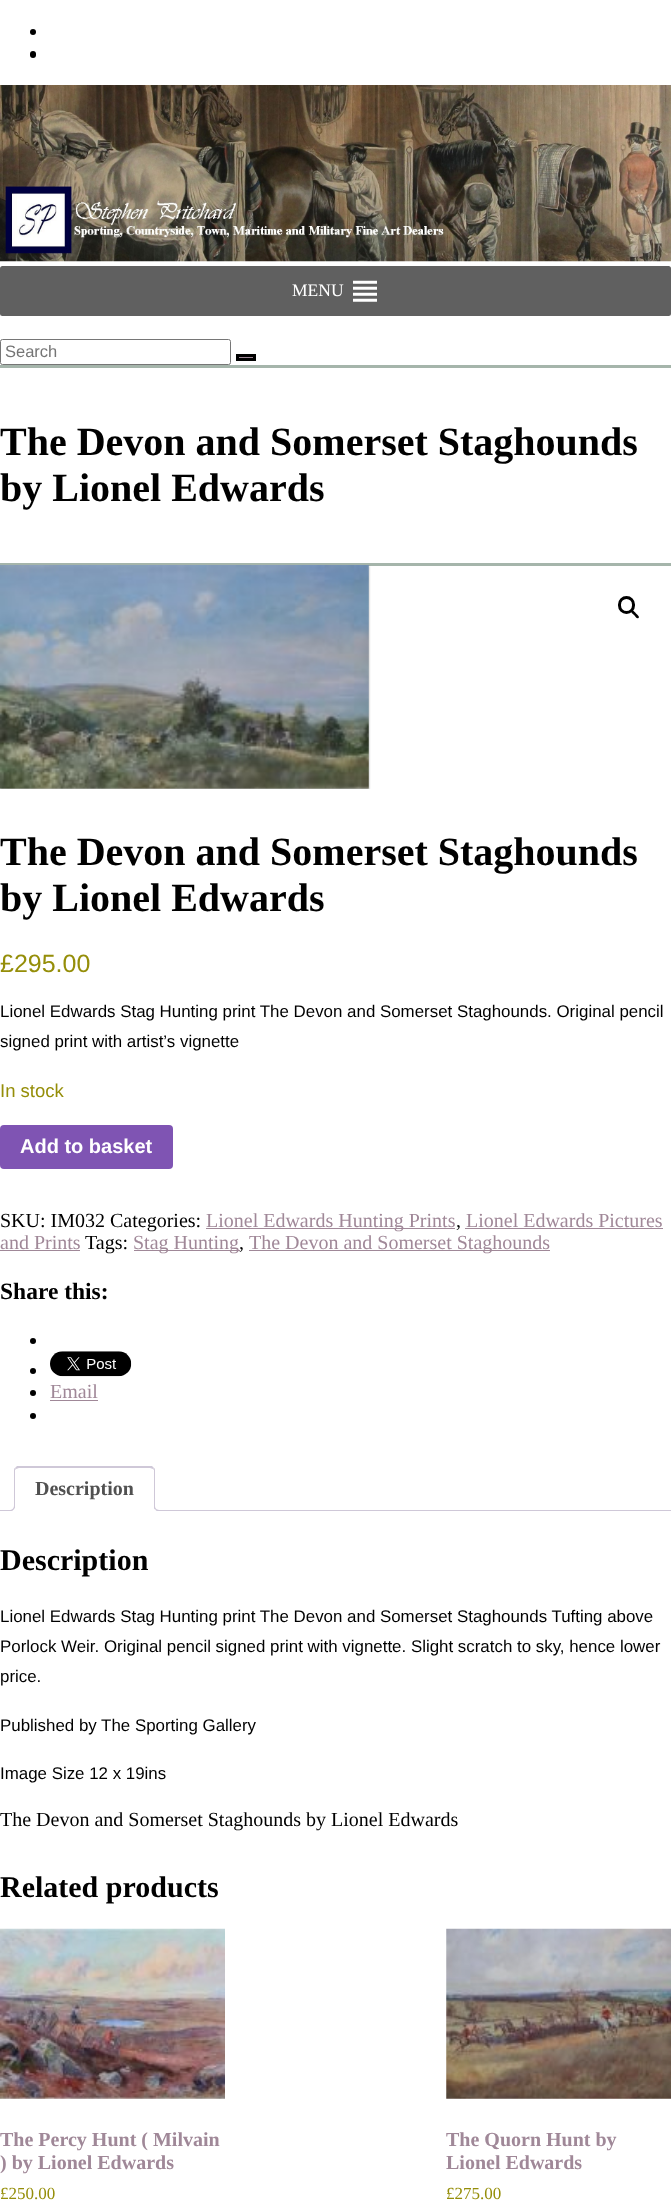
<svg xmlns="http://www.w3.org/2000/svg" width="671" height="2203" viewBox="0 0 671 2203">
  <defs>
    <clipPath id="clip1"><path d="M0 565h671v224H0z"/></clipPath>
    <clipPath id="clip2"><path d="M0 1466h671v45H0z"/></clipPath>
  </defs>
  <rect width="100%" height="100%" fill="#fff"/>
  <circle cx="33" cy="32" r="3" fill="#000"/>
  <rect x="30" y="51" width="6" height="7" rx="3" fill="#000"/>
  <image x="0" y="85" width="671" height="177" href="img/1.png"/>
  <rect y="266" width="671" height="50" rx="2.5" fill="#606060"/>
  <image x="353" y="280" width="24" height="22" href="img/2.png"/>
  <rect x="0.5" y="339.5" width="230" height="25" rx="2" fill="none" stroke="#767676"/>
  <path d="M237.5 355.5h17v4H237.5z" fill="#a08898" stroke="#000" stroke-width="3"/>
  <path d="M0 365h671v3H0z" fill="#a5b5ab"/>
  <path d="M0 563h671v3H0z" fill="#a5b5ab"/>
  <g clip-path="url(#clip1)">
    <path d="M0 566h369v224H0z" fill="#0000004d" filter="blur(1px)"/>
  </g>
  <image x="0" y="565" width="369" height="224" href="img/3.png"/>
  <rect x="619.5" y="597.5" width="14" height="15" rx="7" fill="none" stroke="#000" stroke-width="3"/>
  <path d="M631.5 611C633 609.5 635 612.5 636 613.5C636.5 614 640 616.5 638.5 618C637 619.5 635 616 634 615C633.5 614.5 630 612 631.5 611Z" fill="#000"/>
  <rect y="1125" width="173" height="44" rx="4" fill="#7f54b3"/>
  <path d="M206 1228h249v1H206z" fill="#a08898"/>
  <path d="M465 1228h198v1H465z" fill="#a08898"/>
  <path d="M0 1250h80v1H0z" fill="#a08898"/>
  <path d="M134 1250h106v1H134z" fill="#a08898"/>
  <path d="M249 1250h301v1H249z" fill="#a08898"/>
  <circle cx="33" cy="1341" r="3" fill="#000"/>
  <circle cx="33" cy="1371" r="3" fill="#000"/>
  <image x="50" y="1351" width="82" height="26" href="img/4.png"/>
  <circle cx="33" cy="1393" r="3" fill="#000"/>
  <path d="M50 1400h48v1H50z" fill="#a08898"/>
  <circle cx="33" cy="1416" r="3" fill="#000"/>
  <path d="M0 1510h671v1H0z" fill="#cfc8d8"/>
  <path d="M19 1466H150C153 1466 155 1468 155 1471V1511H14V1471C14 1468 16 1466 19 1466Z" fill="#fff"/>
  <path d="M19 1468L16 1469L15 1468L17 1466H152L154 1468L153 1469L150 1468Z" fill="#cfc8d8"/>
  <path d="M155 1511V1471C155 1470 155 1468 154 1468L153 1469L154 1470V1510Z" fill="#cfc8d8"/>
  <path d="M155 1511H14L15 1510H154Z" fill="#fff"/>
  <path d="M14 1511L15 1510V1470L16 1469L15 1468C14 1468 14 1470 14 1471Z" fill="#cfc8d8"/>
  <g clip-path="url(#clip2)">
    <path d="M11 1511V1514C15.5 1514 18 1513 18 1508H14.5C14 1509.5 12.5 1511 11 1511Z" fill="#fff"/>
  </g>
  <path d="M9 1505H15C15 1509.5 13 1511 9 1511ZM9 1505H14C14 1508.5 12.5 1510 9 1510Z" fill="#cfc8d8" fill-rule="evenodd"/>
  <g clip-path="url(#clip2)">
    <path d="M151 1508C151 1513 153.5 1514 158 1514V1511C156 1511 154.5 1509.5 154 1508Z" fill="#fff"/>
  </g>
  <path d="M154 1505H160V1511C157 1511 154 1510 154 1506ZM155 1505H160V1510C157.5 1510 155 1509 155 1506Z" fill="#cfc8d8" fill-rule="evenodd"/>
  <image x="0" y="1928" width="225" height="171" href="img/5.png"/>
  <image x="446" y="1928" width="225" height="171" href="img/6.png"/>
  <text x="292" y="296" font-family="Liberation Serif" font-size="17.5" fill="#fff">MENU</text>
  <text x="5" y="357" font-family="Liberation Sans" font-size="16.5" fill="#757575">Search</text>
  <g font-family="Liberation Serif" font-size="40" font-weight="bold" fill="#000">
    <text x="0" y="455">The Devon and Somerset Staghounds</text>
    <text x="0" y="501">by Lionel Edwards</text>
    <text x="0" y="865">The Devon and Somerset Staghounds</text>
    <text x="0" y="911">by Lionel Edwards</text>
  </g>
  <text x="0" y="972" font-family="Liberation Sans" font-size="25" fill="#958e09">£295.00</text>
  <g font-family="Liberation Sans" font-size="16.9" fill="#000">
    <text x="0" y="1017">Lionel Edwards Stag Hunting print The Devon and Somerset Staghounds. Original pencil</text>
    <text x="0" y="1047">signed print with artist’s vignette</text>
  </g>
  <text x="0" y="1097" font-family="Liberation Sans" font-size="18.5" fill="#958e09">In stock</text>
  <text x="20" y="1153" font-family="Liberation Sans" font-size="20" font-weight="bold" fill="#fff">Add to basket</text>
  <text x="0" y="1227" font-family="Liberation Serif" font-size="20" fill="#000">SKU: IM032 Categories:</text>
  <text x="206" y="1227" font-family="Liberation Serif" font-size="20" fill="#a08898">Lionel Edwards Hunting Prints</text>
  <text x="456" y="1227" font-family="Liberation Serif" font-size="20" fill="#000">,</text>
  <g font-family="Liberation Serif" font-size="20" fill="#a08898">
    <text x="466" y="1227">Lionel Edwards Pictures</text>
    <text x="0" y="1249">and Prints</text>
  </g>
  <text x="85" y="1249" font-family="Liberation Serif" font-size="20" fill="#000">Tags:</text>
  <text x="133" y="1249" font-family="Liberation Serif" font-size="20" fill="#a08898">Stag Hunting</text>
  <text x="239" y="1249" font-family="Liberation Serif" font-size="20" fill="#000">,</text>
  <text x="249" y="1249" font-family="Liberation Serif" font-size="20" fill="#a08898">The Devon and Somerset Staghounds</text>
  <text x="0" y="1299" font-family="Liberation Serif" font-size="23.5" font-weight="bold" fill="#000">Share this:</text>
  <text x="50" y="1398" font-family="Liberation Serif" font-size="20" fill="#a08898">Email</text>
  <text x="35" y="1495" font-family="Liberation Serif" font-size="20" font-weight="bold" fill="#515151">Description</text>
  <text x="0" y="1570" font-family="Liberation Serif" font-size="30" font-weight="bold" fill="#000">Description</text>
  <g font-family="Liberation Sans" font-size="16.9" fill="#000">
    <text x="0" y="1622">Lionel Edwards Stag Hunting print The Devon and Somerset Staghounds Tufting above</text>
    <text x="0" y="1652">Porlock Weir. Original pencil signed print with vignette. Slight scratch to sky, hence lower</text>
    <text x="0" y="1682">price.</text>
    <text x="0" y="1731">Published by The Sporting Gallery</text>
    <text x="0" y="1779">Image Size 12 x 19ins</text>
  </g>
  <text x="0" y="1826" font-family="Liberation Serif" font-size="20" fill="#000">The Devon and Somerset Staghounds by Lionel Edwards</text>
  <text x="0" y="1897" font-family="Liberation Serif" font-size="30" font-weight="bold" fill="#000">Related products</text>
  <g font-family="Liberation Serif" font-size="20" font-weight="bold" fill="#a08898">
    <text x="0" y="2146">The Percy Hunt ( Milvain</text>
    <text x="0" y="2169">) by Lionel Edwards</text>
  </g>
  <text x="0" y="2199" font-family="Liberation Serif" font-size="17" fill="#958e09">£250.00</text>
  <g font-family="Liberation Serif" font-size="20" font-weight="bold" fill="#a08898">
    <text x="446" y="2146">The Quorn Hunt by</text>
    <text x="446" y="2169">Lionel Edwards</text>
  </g>
  <text x="446" y="2199" font-family="Liberation Serif" font-size="17" fill="#958e09">£275.00</text>
</svg>
